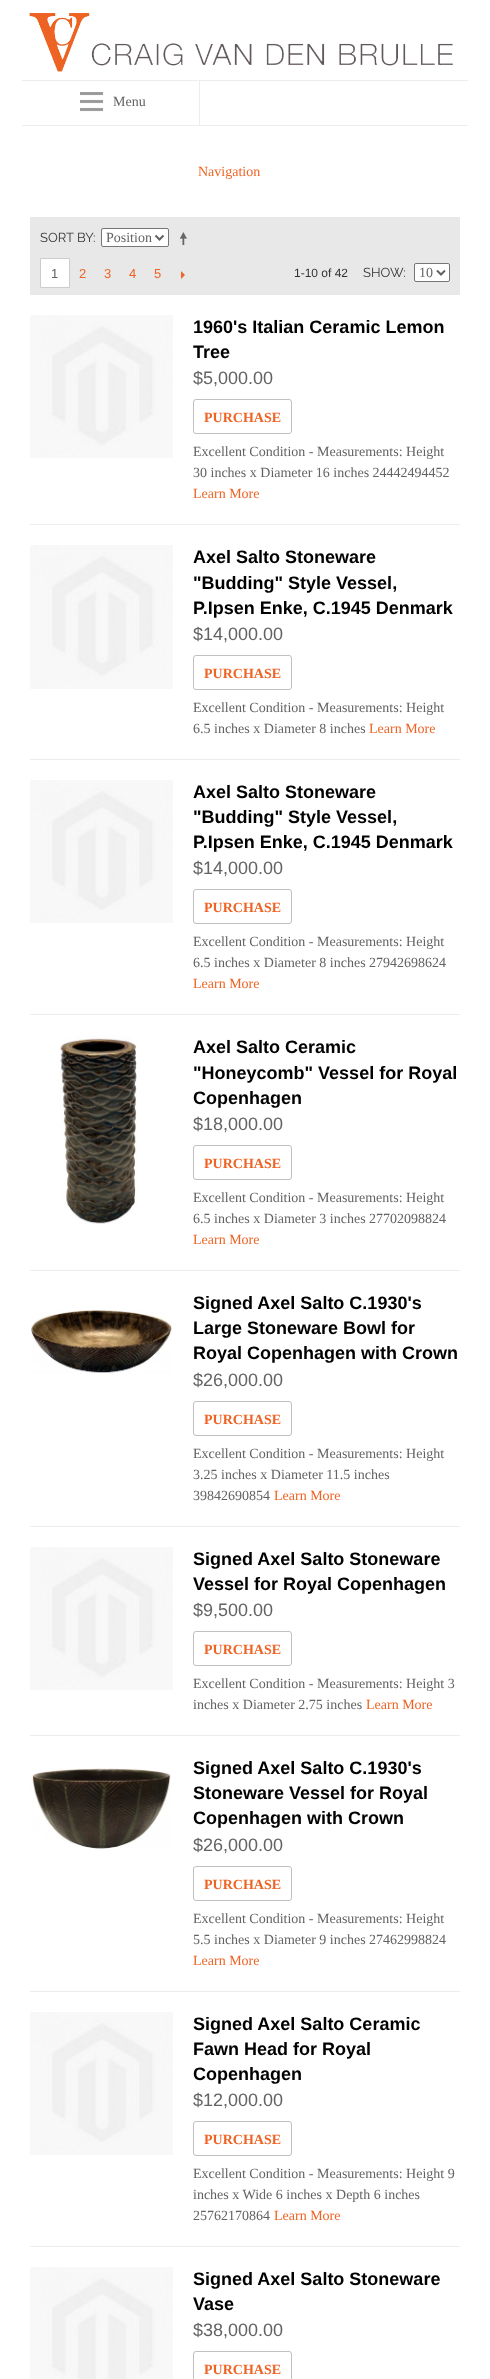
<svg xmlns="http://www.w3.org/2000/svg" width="490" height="2379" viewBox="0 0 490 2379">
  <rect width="100%" height="100%" fill="#fff"/>
  <image x="29" y="13" width="424" height="59" href="img/1.png"/>
  <path d="M22 80h446v1H22z" fill="#ededed"/>
  <path d="M22 125h446v1H22z" fill="#ededed"/>
  <path d="M199 81h1v44H199z" fill="#ededed"/>
  <image x="80" y="92" width="24" height="20" href="img/2.png"/>
  <path d="M30 217h430v78H30z" fill="#e8e8e8"/>
  <rect x="101.5" y="228.5" width="67" height="18" rx="1.5" fill="#fff" stroke="#767676"/>
  <path d="M155.5 235.5L159.5 239.5L163.5 235.5" fill="none" stroke="#636363" stroke-width="2"/>
  <image x="180" y="232" width="7" height="14" href="img/3.png"/>
  <path d="M40.5 258.5h29v29H40.5z" fill="#fff" stroke="#ccc"/>
  <path d="M181 279V271L185 275Z" fill="#ee6425"/>
  <rect x="414.5" y="263.5" width="35" height="18" rx="1.5" fill="#fff" stroke="#767676"/>
  <path d="M437 270.5L441 274.5L445 270.5" fill="none" stroke="#636363" stroke-width="2"/>
  <path d="M30 524h430v1H30z" fill="#ededed"/>
  <image x="30" y="315" width="143" height="143" href="img/4.png"/>
  <rect x="193.5" y="399.5" width="98" height="34" rx="2.5" fill="none" stroke="#c0c0c0"/>
  <path d="M30 759h430v1H30z" fill="#ededed"/>
  <image x="30" y="545" width="143" height="144" href="img/5.png"/>
  <rect x="193.5" y="655.5" width="98" height="34" rx="2.5" fill="none" stroke="#c0c0c0"/>
  <path d="M30 1014h430v1H30z" fill="#ededed"/>
  <image x="30" y="780" width="143" height="143" href="img/4.png"/>
  <rect x="193.5" y="889.5" width="98" height="34" rx="2.5" fill="none" stroke="#c0c0c0"/>
  <path d="M30 1270h430v1H30z" fill="#ededed"/>
  <image x="60" y="1035" width="77" height="189" href="img/6.png"/>
  <rect x="193.5" y="1145.5" width="98" height="34" rx="2.5" fill="none" stroke="#c0c0c0"/>
  <path d="M30 1526h430v1H30z" fill="#ededed"/>
  <image x="31" y="1309" width="141" height="65" href="img/7.png"/>
  <rect x="193.5" y="1401.5" width="98" height="34" rx="2.5" fill="none" stroke="#c0c0c0"/>
  <path d="M30 1735h430v1H30z" fill="#ededed"/>
  <image x="30" y="1547" width="143" height="143" href="img/4.png"/>
  <rect x="193.5" y="1631.5" width="98" height="34" rx="2.5" fill="none" stroke="#c0c0c0"/>
  <path d="M30 1991h430v1H30z" fill="#ededed"/>
  <image x="30" y="1768" width="141" height="81" href="img/8.png"/>
  <rect x="193.5" y="1866.5" width="98" height="34" rx="2.5" fill="none" stroke="#c0c0c0"/>
  <path d="M30 2246h430v1H30z" fill="#ededed"/>
  <image x="30" y="2012" width="143" height="143" href="img/4.png"/>
  <rect x="193.5" y="2121.5" width="98" height="34" rx="2.5" fill="none" stroke="#c0c0c0"/>
  <image x="30" y="2267" width="143" height="112" href="img/9.png"/>
  <rect x="193.5" y="2351.5" width="98" height="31" rx="2.5" fill="none" stroke="#c0c0c0"/>
  <text x="113" y="106" font-family="Liberation Serif" font-size="14" fill="#636363">Menu</text>
  <text x="198" y="176" font-family="Liberation Serif" font-size="14" fill="#ee6425">Navigation</text>
  <g font-family="Raleway" font-size="13" fill="#333">
    <text x="40" y="242">SORT BY</text>
    <text x="93" y="242">:</text>
  </g>
  <text x="106" y="242" font-family="Liberation Serif" font-size="14" fill="#636363">Position</text>
  <text x="51" y="278" font-family="Liberation Sans" font-size="13" fill="#636363">1</text>
  <g font-family="Liberation Sans" font-size="13" fill="#ee6425">
    <text x="79" y="278">2</text>
    <text x="104" y="278">3</text>
    <text x="129" y="278">4</text>
    <text x="154" y="278">5</text>
  </g>
  <text x="294" y="277" font-family="Liberation Sans" font-size="12" fill="#333">1-10 of 42</text>
  <text x="363" y="277" font-family="Raleway" font-size="13" fill="#333">SHOW:</text>
  <text x="419" y="277" font-family="Liberation Serif" font-size="14" fill="#636363">10</text>
  <g font-family="Liberation Sans" font-size="18" font-weight="bold" fill="#000">
    <text x="193" y="333">1960's Italian Ceramic Lemon</text>
    <text x="193" y="358">Tree</text>
  </g>
  <text x="193" y="384" font-family="Liberation Sans" font-size="18" fill="#636363">$5,000.00</text>
  <text x="204" y="422" font-family="Liberation Serif" font-size="14" font-weight="bold" fill="#ee6425">PURCHASE</text>
  <g font-family="Liberation Serif" font-size="14" fill="#636363">
    <text x="193" y="456">Excellent Condition - Measurements: Height</text>
    <text x="193" y="477">30 inches x Diameter 16 inches 24442494452</text>
  </g>
  <text x="193" y="498" font-family="Liberation Serif" font-size="14" fill="#ee6425">Learn More</text>
  <g font-family="Liberation Sans" font-size="18" font-weight="bold" fill="#000">
    <text x="193" y="563">Axel Salto Stoneware</text>
    <text x="193" y="589">"Budding" Style Vessel,</text>
    <text x="193" y="614">P.Ipsen Enke, C.1945 Denmark</text>
  </g>
  <text x="193" y="640" font-family="Liberation Sans" font-size="18" fill="#636363">$14,000.00</text>
  <text x="204" y="678" font-family="Liberation Serif" font-size="14" font-weight="bold" fill="#ee6425">PURCHASE</text>
  <g font-family="Liberation Serif" font-size="14" fill="#636363">
    <text x="193" y="712">Excellent Condition - Measurements: Height</text>
    <text x="193" y="733">6.5 inches x Diameter 8 inches</text>
  </g>
  <text x="369" y="733" font-family="Liberation Serif" font-size="14" fill="#ee6425">Learn More</text>
  <g font-family="Liberation Sans" font-size="18" font-weight="bold" fill="#000">
    <text x="193" y="798">Axel Salto Stoneware</text>
    <text x="193" y="823">"Budding" Style Vessel,</text>
    <text x="193" y="848">P.Ipsen Enke, C.1945 Denmark</text>
  </g>
  <text x="193" y="874" font-family="Liberation Sans" font-size="18" fill="#636363">$14,000.00</text>
  <text x="204" y="912" font-family="Liberation Serif" font-size="14" font-weight="bold" fill="#ee6425">PURCHASE</text>
  <g font-family="Liberation Serif" font-size="14" fill="#636363">
    <text x="193" y="946">Excellent Condition - Measurements: Height</text>
    <text x="193" y="967">6.5 inches x Diameter 8 inches 27942698624</text>
  </g>
  <text x="193" y="988" font-family="Liberation Serif" font-size="14" fill="#ee6425">Learn More</text>
  <g font-family="Liberation Sans" font-size="18" font-weight="bold" fill="#000">
    <text x="193" y="1053">Axel Salto Ceramic</text>
    <text x="193" y="1079">"Honeycomb" Vessel for Royal</text>
    <text x="193" y="1104">Copenhagen</text>
  </g>
  <text x="193" y="1130" font-family="Liberation Sans" font-size="18" fill="#636363">$18,000.00</text>
  <text x="204" y="1168" font-family="Liberation Serif" font-size="14" font-weight="bold" fill="#ee6425">PURCHASE</text>
  <g font-family="Liberation Serif" font-size="14" fill="#636363">
    <text x="193" y="1202">Excellent Condition - Measurements: Height</text>
    <text x="193" y="1223">6.5 inches x Diameter 3 inches 27702098824</text>
  </g>
  <text x="193" y="1244" font-family="Liberation Serif" font-size="14" fill="#ee6425">Learn More</text>
  <g font-family="Liberation Sans" font-size="18" font-weight="bold" fill="#000">
    <text x="193" y="1309">Signed Axel Salto C.1930's</text>
    <text x="193" y="1334">Large Stoneware Bowl for</text>
    <text x="193" y="1359">Royal Copenhagen with Crown</text>
  </g>
  <text x="193" y="1386" font-family="Liberation Sans" font-size="18" fill="#636363">$26,000.00</text>
  <text x="204" y="1424" font-family="Liberation Serif" font-size="14" font-weight="bold" fill="#ee6425">PURCHASE</text>
  <g font-family="Liberation Serif" font-size="14" fill="#636363">
    <text x="193" y="1458">Excellent Condition - Measurements: Height</text>
    <text x="193" y="1479">3.25 inches x Diameter 11.5 inches</text>
    <text x="193" y="1500">39842690854</text>
  </g>
  <text x="274" y="1500" font-family="Liberation Serif" font-size="14" fill="#ee6425">Learn More</text>
  <g font-family="Liberation Sans" font-size="18" font-weight="bold" fill="#000">
    <text x="193" y="1565">Signed Axel Salto Stoneware</text>
    <text x="193" y="1590">Vessel for Royal Copenhagen</text>
  </g>
  <text x="193" y="1616" font-family="Liberation Sans" font-size="18" fill="#636363">$9,500.00</text>
  <text x="204" y="1654" font-family="Liberation Serif" font-size="14" font-weight="bold" fill="#ee6425">PURCHASE</text>
  <g font-family="Liberation Serif" font-size="14" fill="#636363">
    <text x="193" y="1688">Excellent Condition - Measurements: Height 3</text>
    <text x="193" y="1709">inches x Diameter 2.75 inches</text>
  </g>
  <text x="366" y="1709" font-family="Liberation Serif" font-size="14" fill="#ee6425">Learn More</text>
  <g font-family="Liberation Sans" font-size="18" font-weight="bold" fill="#000">
    <text x="193" y="1774">Signed Axel Salto C.1930's</text>
    <text x="193" y="1799">Stoneware Vessel for Royal</text>
    <text x="193" y="1824">Copenhagen with Crown</text>
  </g>
  <text x="193" y="1851" font-family="Liberation Sans" font-size="18" fill="#636363">$26,000.00</text>
  <text x="204" y="1889" font-family="Liberation Serif" font-size="14" font-weight="bold" fill="#ee6425">PURCHASE</text>
  <g font-family="Liberation Serif" font-size="14" fill="#636363">
    <text x="193" y="1923">Excellent Condition - Measurements: Height</text>
    <text x="193" y="1944">5.5 inches x Diameter 9 inches 27462998824</text>
  </g>
  <text x="193" y="1965" font-family="Liberation Serif" font-size="14" fill="#ee6425">Learn More</text>
  <g font-family="Liberation Sans" font-size="18" font-weight="bold" fill="#000">
    <text x="193" y="2030">Signed Axel Salto Ceramic</text>
    <text x="193" y="2055">Fawn Head for Royal</text>
    <text x="193" y="2080">Copenhagen</text>
  </g>
  <text x="193" y="2106" font-family="Liberation Sans" font-size="18" fill="#636363">$12,000.00</text>
  <text x="204" y="2144" font-family="Liberation Serif" font-size="14" font-weight="bold" fill="#ee6425">PURCHASE</text>
  <g font-family="Liberation Serif" font-size="14" fill="#636363">
    <text x="193" y="2178">Excellent Condition - Measurements: Height 9</text>
    <text x="193" y="2199">inches x Wide 6 inches x Depth 6 inches</text>
    <text x="193" y="2220">25762170864</text>
  </g>
  <text x="274" y="2220" font-family="Liberation Serif" font-size="14" fill="#ee6425">Learn More</text>
  <g font-family="Liberation Sans" font-size="18" font-weight="bold" fill="#000">
    <text x="193" y="2285">Signed Axel Salto Stoneware</text>
    <text x="193" y="2310">Vase</text>
  </g>
  <text x="193" y="2336" font-family="Liberation Sans" font-size="18" fill="#636363">$38,000.00</text>
  <text x="204" y="2374" font-family="Liberation Serif" font-size="14" font-weight="bold" fill="#ee6425">PURCHASE</text>
</svg>
